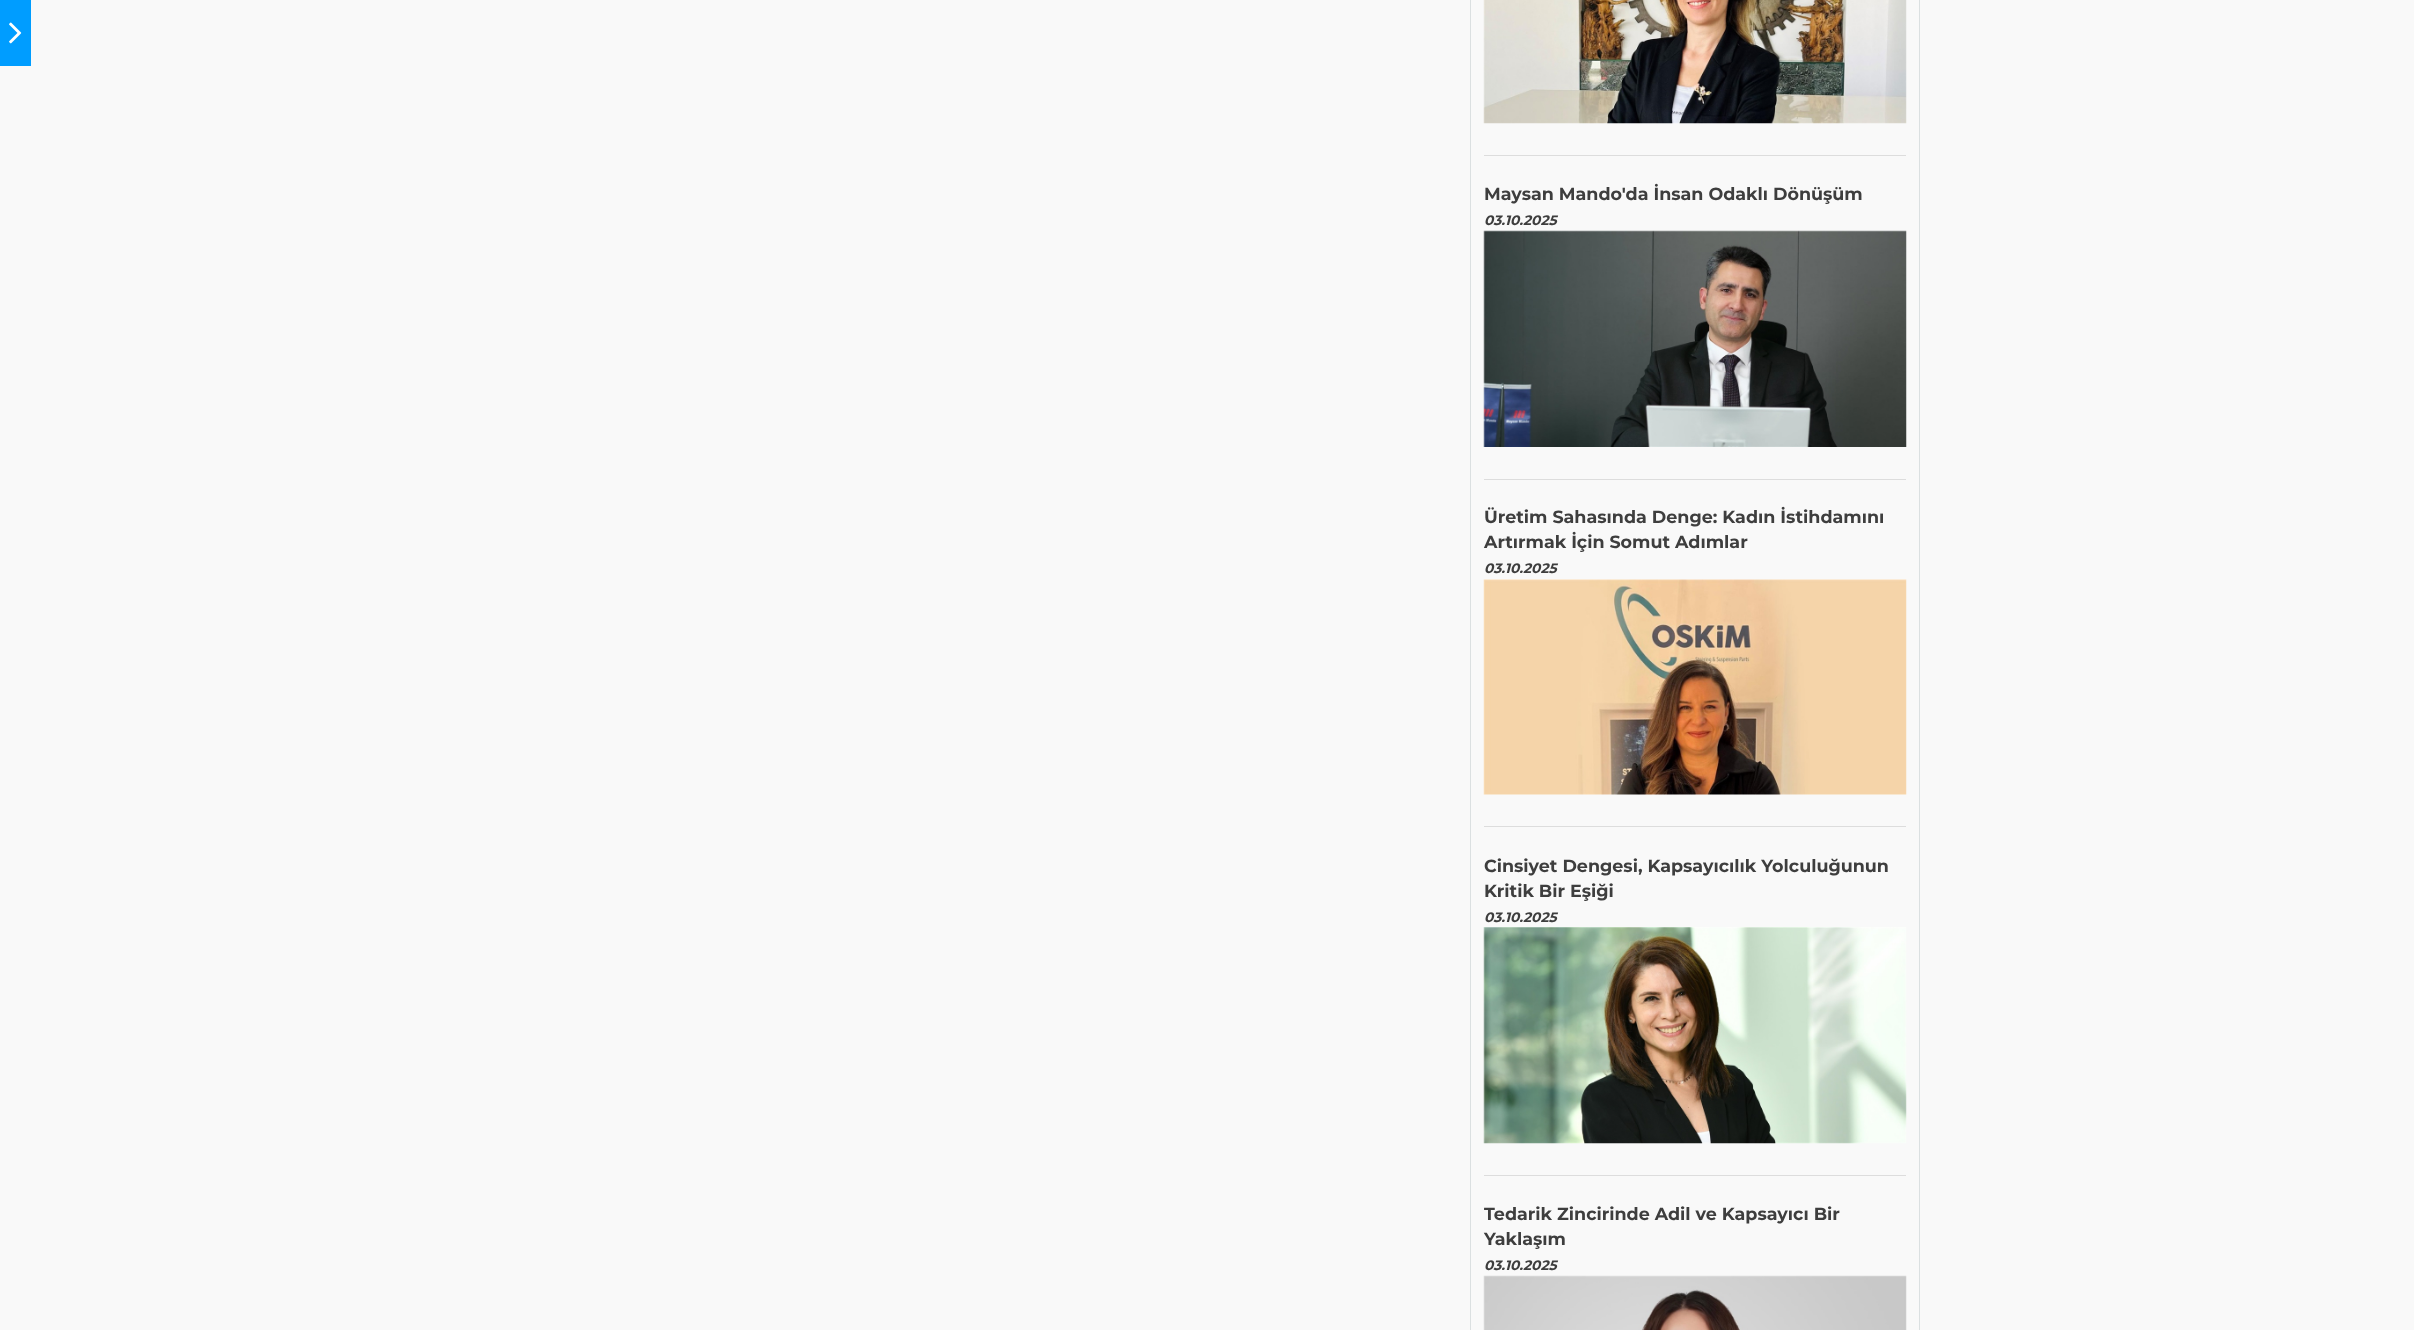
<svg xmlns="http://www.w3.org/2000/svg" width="2414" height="1330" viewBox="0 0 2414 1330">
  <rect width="100%" height="100%" fill="#f9f9f9"/>
  <path d="M0 0h31v66H0z" fill="#009dff"/>
  <image x="9" y="22" width="13" height="22" href="img/1.png"/>
  <path d="M1470.5 -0.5h449v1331H1470.5z" fill="none" stroke="#dbe0e1"/>
  <path d="M1484 155h422v1H1484z" fill="#ddd"/>
  <image x="1483" y="0" width="424" height="124" href="img/2.png"/>
  <path d="M1484 479h422v1H1484z" fill="#ddd"/>
  <image x="1483" y="230" width="424" height="217" href="img/3.png"/>
  <path d="M1484 826h422v1H1484z" fill="#ddd"/>
  <image x="1483" y="579" width="424" height="216" href="img/4.png"/>
  <path d="M1484 1175h422v1H1484z" fill="#ddd"/>
  <image x="1483" y="927" width="424" height="217" href="img/5.png"/>
  <image x="1483" y="1275" width="424" height="55" href="img/6.png"/>
  <text x="1484" y="200" font-family="Montserrat" font-size="17.5" font-weight="bold" fill="#3e3e3e">Maysan Mando'da İnsan Odaklı Dönüşüm</text>
  <text x="1484" y="225" font-family="Montserrat" font-size="13.75" font-weight="bold" font-style="italic" fill="#3e3e3e">03.10.2025</text>
  <g font-family="Montserrat" font-size="17.5" font-weight="bold" fill="#3e3e3e">
    <text x="1484" y="523">Üretim Sahasında Denge: Kadın İstihdamını</text>
    <text x="1484" y="548">Artırmak İçin Somut Adımlar</text>
  </g>
  <text x="1484" y="573" font-family="Montserrat" font-size="13.75" font-weight="bold" font-style="italic" fill="#3e3e3e">03.10.2025</text>
  <g font-family="Montserrat" font-size="17.5" font-weight="bold" fill="#3e3e3e">
    <text x="1484" y="872">Cinsiyet Dengesi, Kapsayıcılık Yolculuğunun</text>
    <text x="1484" y="897">Kritik Bir Eşiği</text>
  </g>
  <text x="1484" y="922" font-family="Montserrat" font-size="13.75" font-weight="bold" font-style="italic" fill="#3e3e3e">03.10.2025</text>
  <g font-family="Montserrat" font-size="17.5" font-weight="bold" fill="#3e3e3e">
    <text x="1484" y="1220">Tedarik Zincirinde Adil ve Kapsayıcı Bir</text>
    <text x="1484" y="1245">Yaklaşım</text>
  </g>
  <text x="1484" y="1270" font-family="Montserrat" font-size="13.75" font-weight="bold" font-style="italic" fill="#3e3e3e">03.10.2025</text>
</svg>
